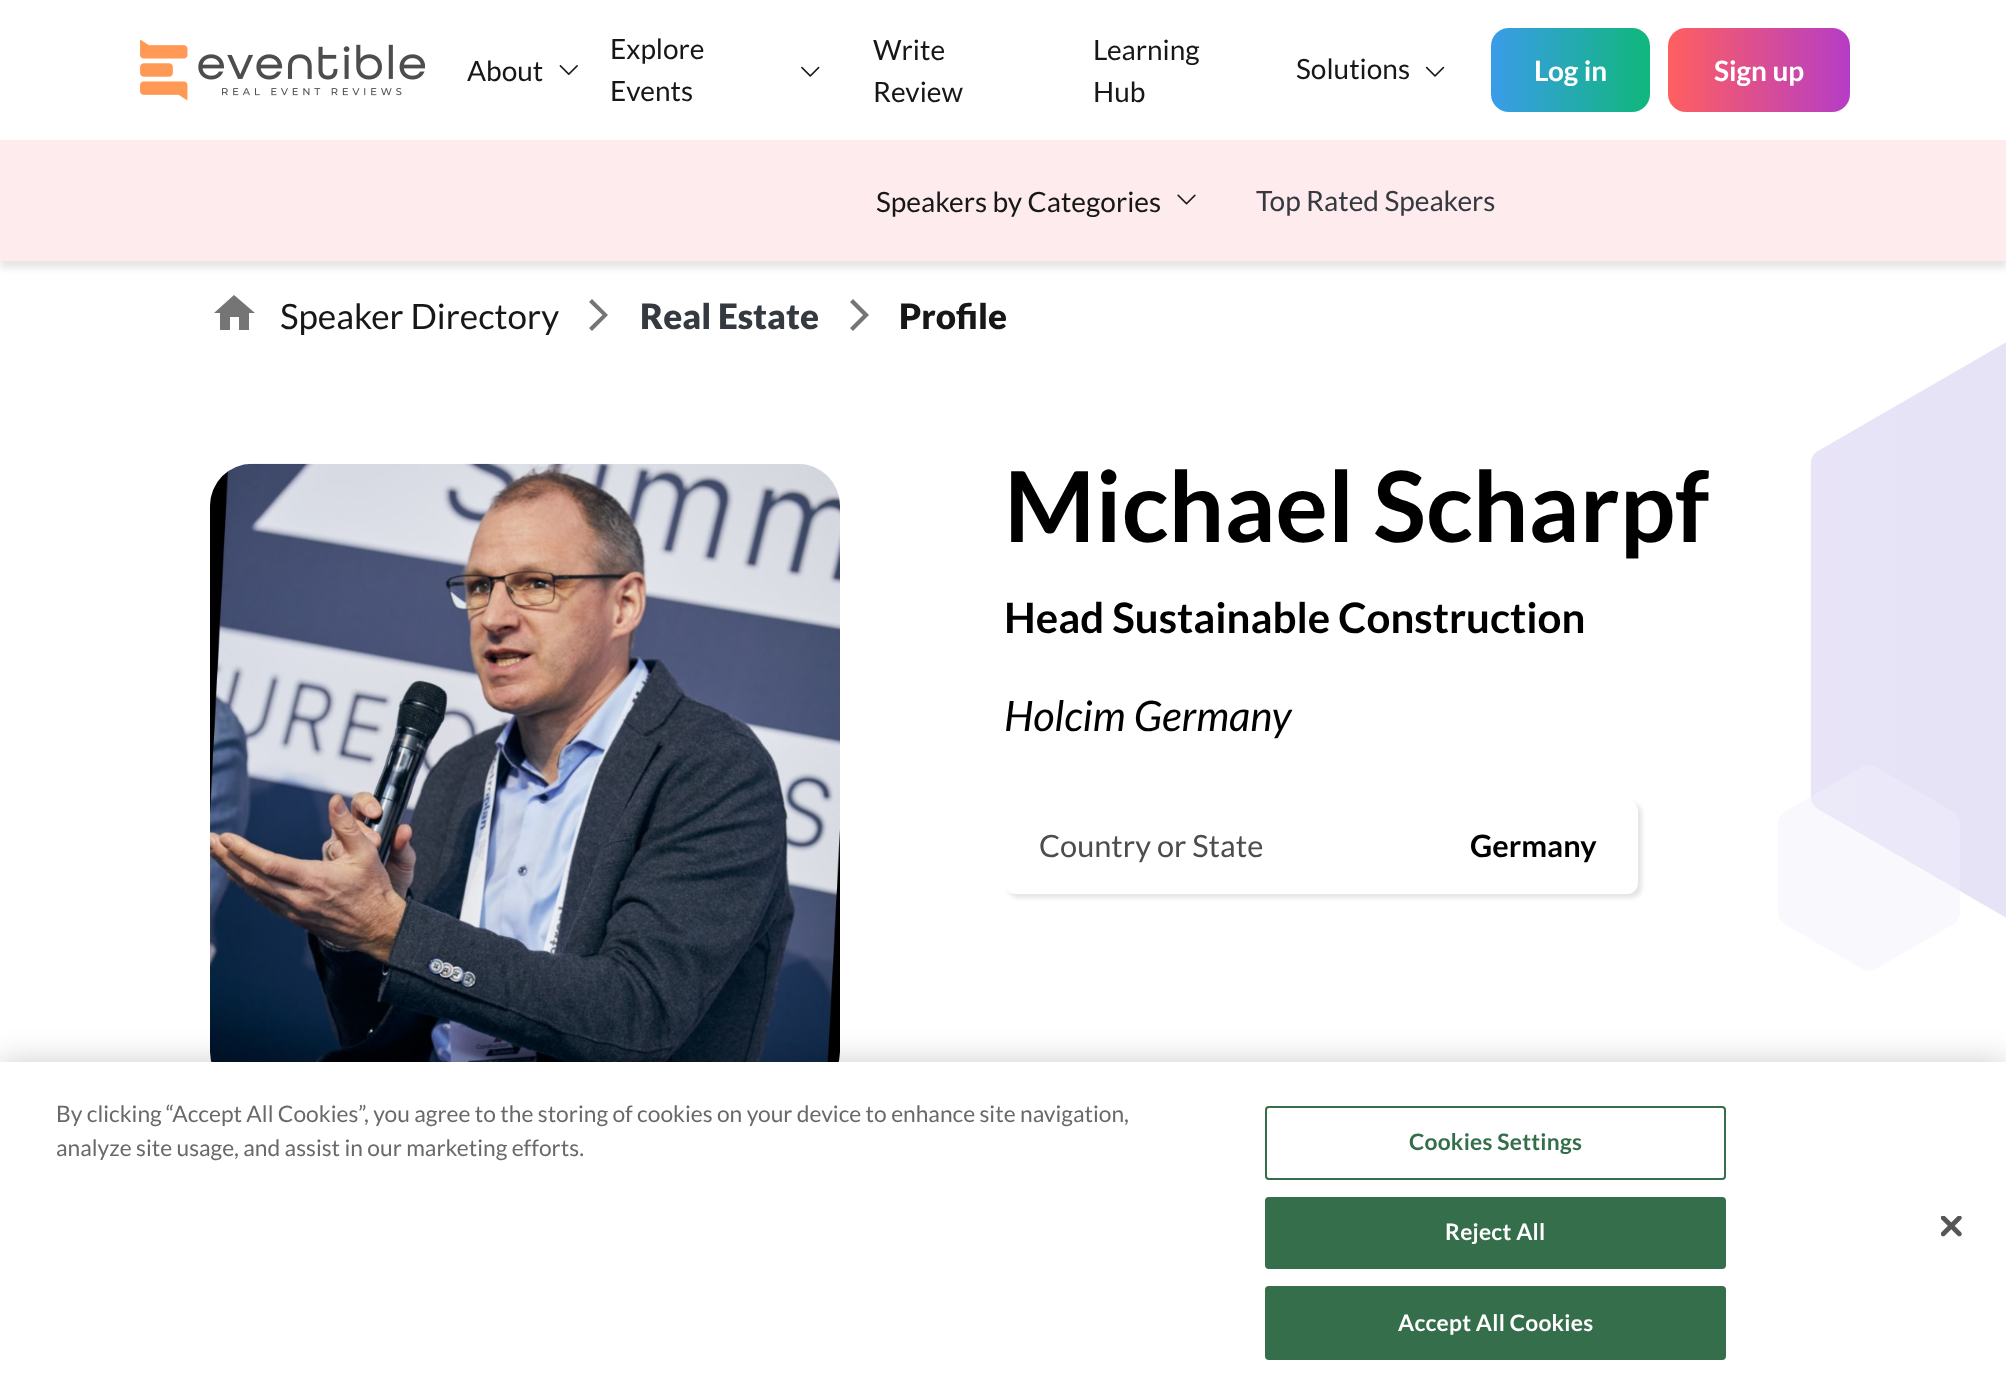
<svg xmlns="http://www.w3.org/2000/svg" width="2006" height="1394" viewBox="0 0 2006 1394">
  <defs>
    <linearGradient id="g1" gradientUnits="userSpaceOnUse" x1="1491" y1="70" x2="1650" y2="70"><stop offset="0" stop-color="#3a9ce9"/><stop offset="1" stop-color="#10b77b"/></linearGradient>
    <linearGradient id="g2" gradientUnits="userSpaceOnUse" x1="1668" y1="70" x2="1850" y2="70"><stop offset="0" stop-color="#ff5f5f"/><stop offset="1" stop-color="#b53dc6"/></linearGradient>
    <clipPath id="clip1"><path d="M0 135H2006V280H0ZM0 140H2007V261H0Z" clip-rule="evenodd"/></clipPath>
    <clipPath id="clip2"><path d="M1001 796H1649V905H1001ZM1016 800H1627C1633 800 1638 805 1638 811V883C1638 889 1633 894 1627 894H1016C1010 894 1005 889 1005 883V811C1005 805 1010 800 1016 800Z" clip-rule="evenodd"/></clipPath>
  </defs>
  <rect width="100%" height="100%" fill="#fff"/>
  <image x="140" y="39" width="285" height="62" href="img/1.png"/>
  <image x="559" y="65" width="19" height="10" href="img/2.png"/>
  <image x="801" y="66" width="19" height="11" href="img/3.png"/>
  <image x="1425" y="66" width="20" height="11" href="img/4.png"/>
  <rect x="1491" y="28" width="159" height="84" rx="18" fill="url(#g1)"/>
  <rect x="1668" y="28" width="182" height="84" rx="18" fill="url(#g2)"/>
  <g clip-path="url(#clip1)">
    <path d="M0 147h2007v121H0z" fill="#0000001a" filter="blur(3.5px)"/>
  </g>
  <path d="M0 140h2006v121H0z" fill="#f45b6f1f"/>
  <image x="1177" y="194" width="19" height="11" href="img/5.png"/>
  <path d="M230 330V317H239V330H249V313H255L234 295L214 313H220V330Z" fill="#757575"/>
  <path d="M589 328L592 331L608 315L592 299L589 302L602.5 315Z" fill="#757575"/>
  <path d="M850 328L853 331L869 315L853 299L850 302L863 315Z" fill="#757575"/>
  <image x="210" y="463" width="630" height="599" href="img/6.png"/>
  <g clip-path="url(#clip2)">
    <rect x="1008" y="803" width="634" height="95" rx="11" fill="#0000001a" filter="blur(2px)"/>
  </g>
  <image x="1778" y="342" width="228" height="629" href="img/7.png"/>
  <path d="M0 1062h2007v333H0z" fill="#00000033" filter="blur(16px)"/>
  <path d="M0 1062h2006v332H0z" fill="#fff"/>
  <rect x="1266" y="1107" width="459" height="72" rx="3" fill="none" stroke="#346e4a" stroke-width="2"/>
  <rect x="1266" y="1198" width="459" height="70" rx="3" fill="#346e4a" stroke="#346e4a" stroke-width="2"/>
  <rect x="1266" y="1287" width="459" height="72" rx="3" fill="#346e4a" stroke="#346e4a" stroke-width="2"/>
  <image x="1941" y="1216" width="21" height="21" href="img/8.png"/>
  <g font-family="Lato" font-size="28" fill="#171717">
    <text x="467" y="81">About</text>
    <text x="610" y="59">Explore</text>
    <text x="610" y="101">Events</text>
    <text x="873" y="60">Write</text>
    <text x="873" y="102">Review</text>
    <text x="1093" y="60">Learning</text>
    <text x="1093" y="102">Hub</text>
    <text x="1296" y="79">Solutions</text>
  </g>
  <g font-family="Lato" font-size="28" font-weight="bold" fill="#fff">
    <text x="1534" y="81">Log in</text>
    <text x="1714" y="81">Sign up</text>
  </g>
  <text x="876" y="212" font-family="Lato" font-size="28" fill="#171717">Speakers by Categories</text>
  <text x="1256" y="211" font-family="Lato" font-size="28" fill="#343a40">Top Rated Speakers</text>
  <text x="280" y="329" font-family="Lato" font-size="35" fill="#171717">Speaker Directory</text>
  <text x="640" y="329" font-family="Lato" font-size="35" font-weight="900" fill="#343a40">Real Estate</text>
  <text x="899" y="329" font-family="Lato" font-size="35" font-weight="900" fill="#171717">Profile</text>
  <text x="1004" y="542" font-family="Lato" font-size="98" font-weight="bold" fill="#000">Michael Scharpf</text>
  <text x="1004" y="633" font-family="Lato" font-size="42" font-weight="bold" fill="#000">Head Sustainable Construction</text>
  <text x="1004" y="731" font-family="Lato" font-size="42" font-style="italic" fill="#000">Holcim Germany</text>
  <text x="1039" y="857" font-family="Lato" font-size="30.75" fill="#4d4d4d">Country or State</text>
  <text x="1470" y="857" font-family="Lato" font-size="30.75" font-weight="bold" fill="#000">Germany</text>
  <g font-family="Lato" font-size="22.75" fill="#696969">
    <text x="56" y="1122">By clicking “Accept All Cookies”, you agree to the storing of cookies on your device to enhance site navigation,</text>
    <text x="56" y="1156">analyze site usage, and assist in our marketing efforts.</text>
  </g>
  <text x="1409" y="1150" font-family="Lato" font-size="22.75" font-weight="bold" letter-spacing="0.25" fill="#346e4a">Cookies Settings</text>
  <g font-family="Lato" font-size="22.75" font-weight="bold" letter-spacing="0.25" fill="#fff">
    <text x="1445" y="1240">Reject All</text>
    <text x="1398" y="1331">Accept All Cookies</text>
  </g>
</svg>
